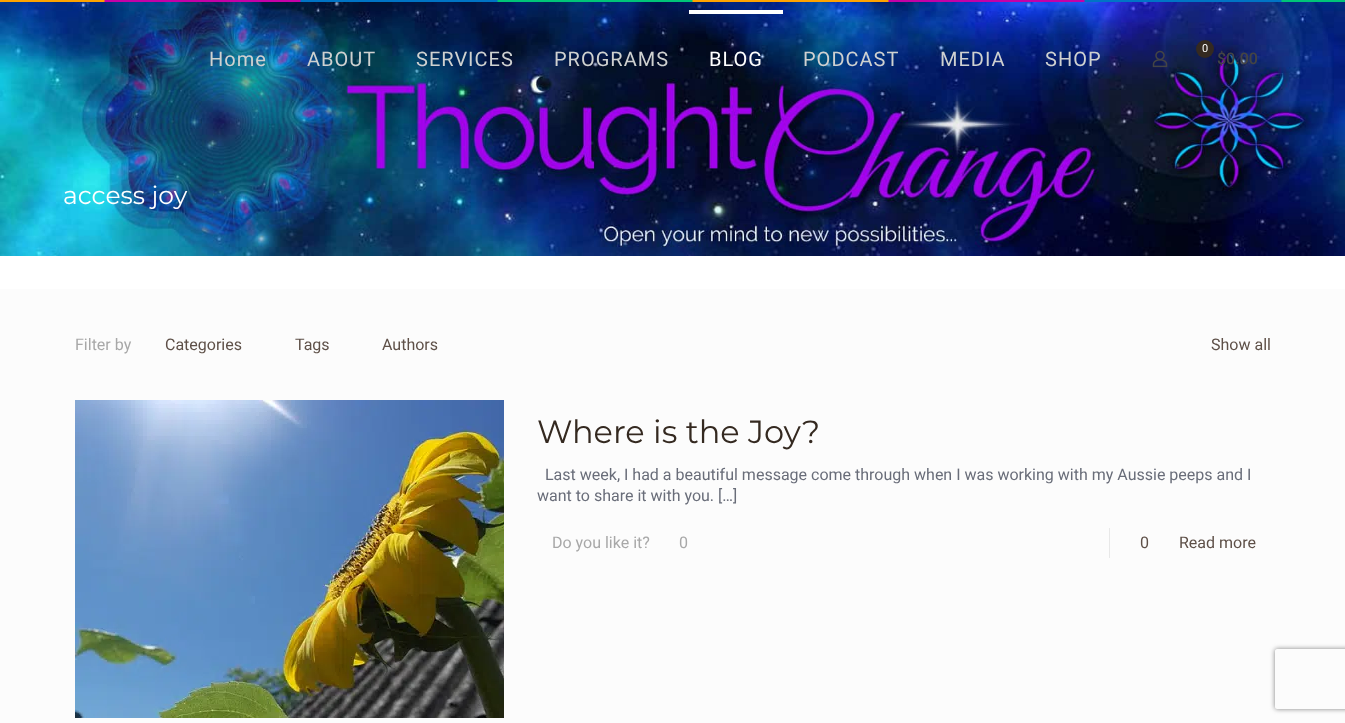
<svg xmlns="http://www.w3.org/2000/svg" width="1345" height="723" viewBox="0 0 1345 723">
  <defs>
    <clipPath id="clip1"><path d="M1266 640H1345V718H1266ZM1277 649H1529C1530 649 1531 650 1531 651V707C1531 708 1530 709 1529 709H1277C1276 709 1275 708 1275 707V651C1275 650 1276 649 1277 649Z" clip-rule="evenodd"/></clipPath>
  </defs>
  <rect width="100%" height="100%" fill="#fcfcfc"/>
  <image x="0" y="0" width="1345" height="2" href="img/1.png"/>
  <image x="0" y="2" width="1345" height="254" href="img/3.png"/>
  <path d="M689 10h94v4H689z" fill="#fff"/>
  <image x="1152" y="50" width="16" height="18" href="img/2.png"/>
  <circle cx="1205" cy="49" r="9" fill="#342920"/>
  <path d="M0 256h1345v33H0z" fill="#fff"/>
  <image x="75" y="400" width="429" height="318" href="img/4.png"/>
  <path d="M1109 528h1v30H1109z" fill="#e8e8e8"/>
  <g clip-path="url(#clip1)">
    <rect x="1275" y="649" width="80" height="60" rx="2" fill="#808080" filter="blur(2.5px)"/>
  </g>
  <g font-family="Roboto" font-size="20" letter-spacing="1" fill="#cfd1d0">
    <text x="209" y="66">Home</text>
    <text x="307" y="66">ABOUT</text>
    <text x="416" y="66">SERVICES</text>
    <text x="554" y="66">PROGRAMS</text>
  </g>
  <text x="709" y="66" font-family="Roboto" font-size="20" letter-spacing="1" fill="#fff">BLOG</text>
  <g font-family="Roboto" font-size="20" letter-spacing="1" fill="#cfd1d0">
    <text x="803" y="66">PODCAST</text>
    <text x="940" y="66">MEDIA</text>
    <text x="1045" y="66">SHOP</text>
  </g>
  <text x="1202" y="52" font-family="Roboto" font-size="11" fill="#fff">0</text>
  <text x="1217" y="64" font-family="Roboto" font-size="16" font-weight="500" fill="#444">$0.00</text>
  <text x="63" y="204" font-family="Montserrat" font-size="25" fill="#fff">access joy</text>
  <text x="75" y="350" font-family="Roboto" font-size="16" fill="#a8a8a8">Filter by</text>
  <g font-family="Roboto" font-size="16" fill="#5e5048">
    <text x="165" y="350">Categories</text>
    <text x="295" y="350">Tags</text>
    <text x="382" y="350">Authors</text>
    <text x="1211" y="350">Show all</text>
  </g>
  <text x="537" y="443" font-family="Montserrat" font-size="32" fill="#342920">Where is the Joy?</text>
  <g font-family="Roboto" font-size="16" fill="#696d79">
    <text x="545" y="480">Last week, I had a beautiful message come through when I was working with my Aussie peeps and I</text>
    <text x="537" y="501">want to share it with you. […]</text>
  </g>
  <g font-family="Roboto" font-size="16" fill="#a8a8a8">
    <text x="552" y="548">Do you like it?</text>
    <text x="679" y="548">0</text>
  </g>
  <g font-family="Roboto" font-size="16" fill="#5e5048">
    <text x="1140" y="548">0</text>
    <text x="1179" y="548">Read more</text>
  </g>
</svg>
